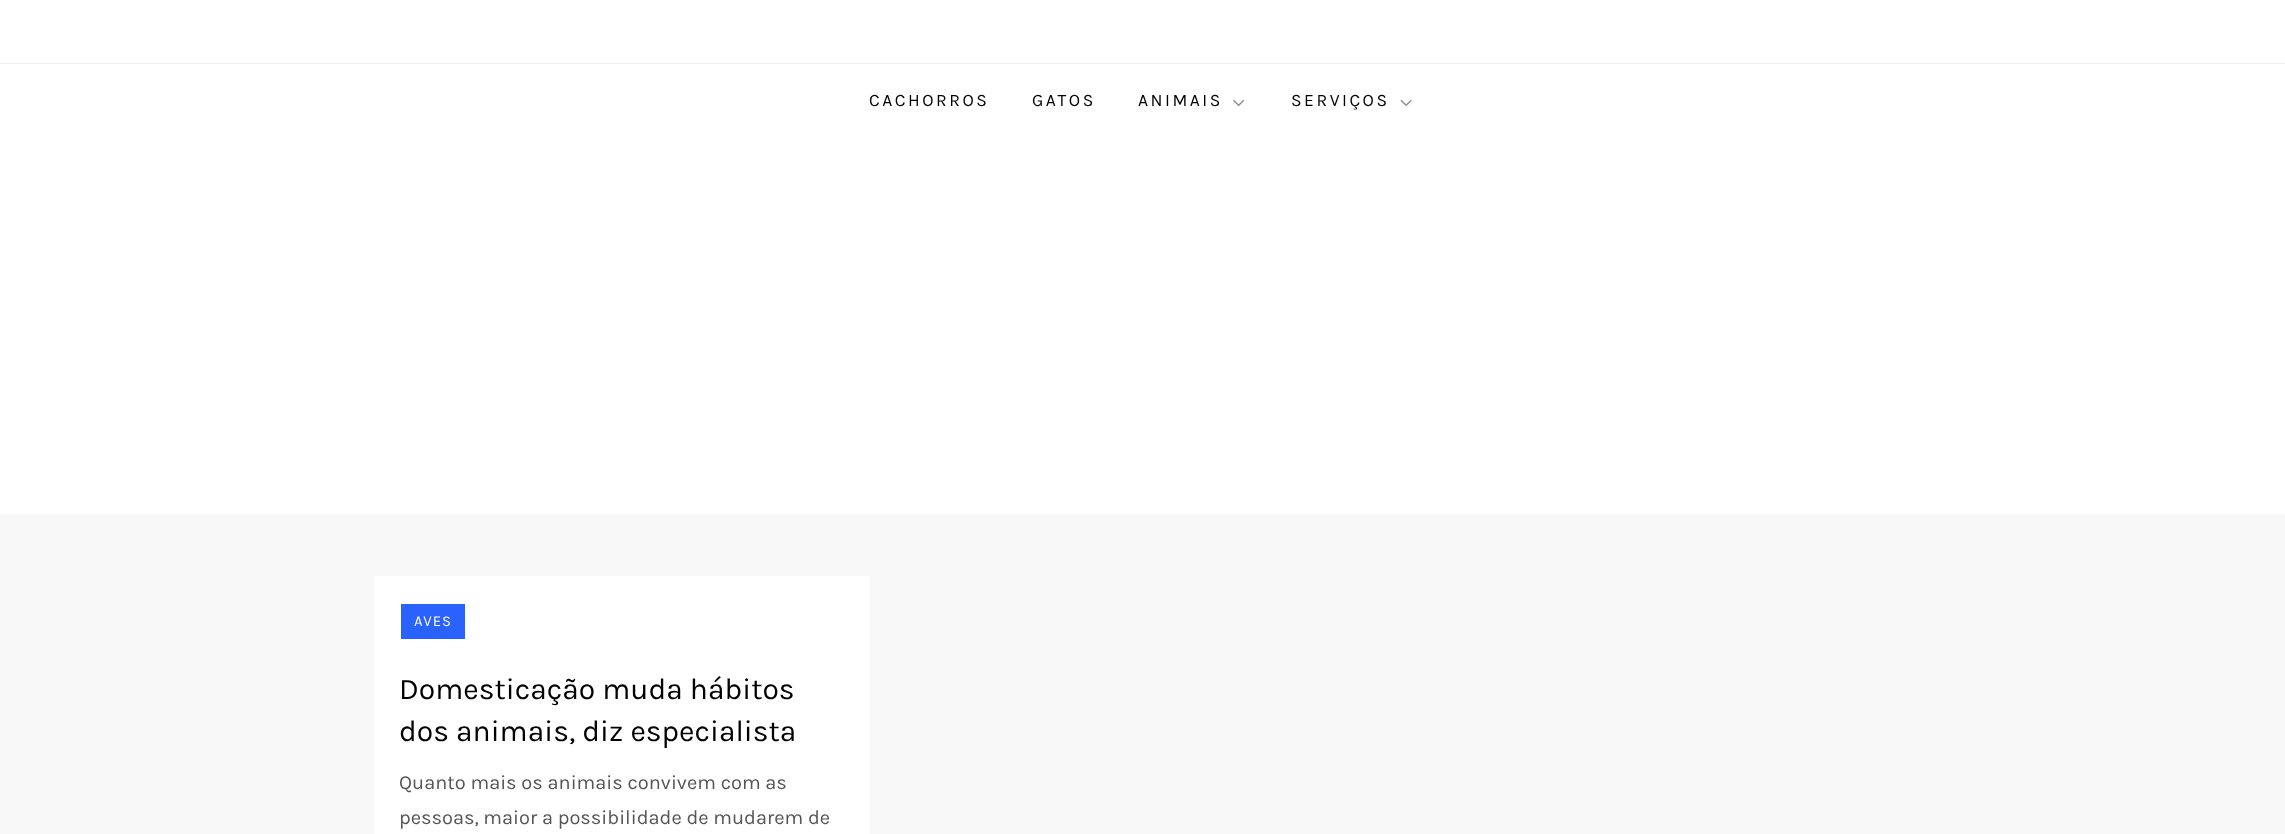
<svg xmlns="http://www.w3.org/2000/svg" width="2285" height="834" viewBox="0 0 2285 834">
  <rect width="100%" height="100%" fill="#f8f8f8"/>
  <path d="M0 0h2285v514H0z" fill="#fff"/>
  <path d="M0 63h2285v1H0z" fill="#eee"/>
  <image x="1233" y="99" width="12" height="8" href="img/1.png"/>
  <image x="1400" y="99" width="12" height="8" href="img/2.png"/>
  <path d="M374 576h496v258H374z" fill="#fff"/>
  <path d="M401 604h64v35H401z" fill="#2962ff"/>
  <g font-family="Karla" font-size="17.5" letter-spacing="2.5" fill="#000">
    <text x="869" y="106">CACHORROS</text>
    <text x="1032" y="106">GATOS</text>
    <text x="1138" y="106">ANIMAIS</text>
    <text x="1291" y="106">SERVIÇOS</text>
  </g>
  <text x="414" y="626" font-family="Karla" font-size="15" letter-spacing="1" fill="#fff">AVES</text>
  <g font-family="Karla" font-size="30" fill="#000">
    <text x="399" y="699">Domesticação muda hábitos</text>
    <text x="399" y="741">dos animais, diz especialista</text>
  </g>
  <g font-family="Karla" font-size="20" fill="#555">
    <text x="399" y="789">Quanto mais os animais convivem com as</text>
    <text x="399" y="824">pessoas, maior a possibilidade de mudarem de</text>
  </g>
</svg>
